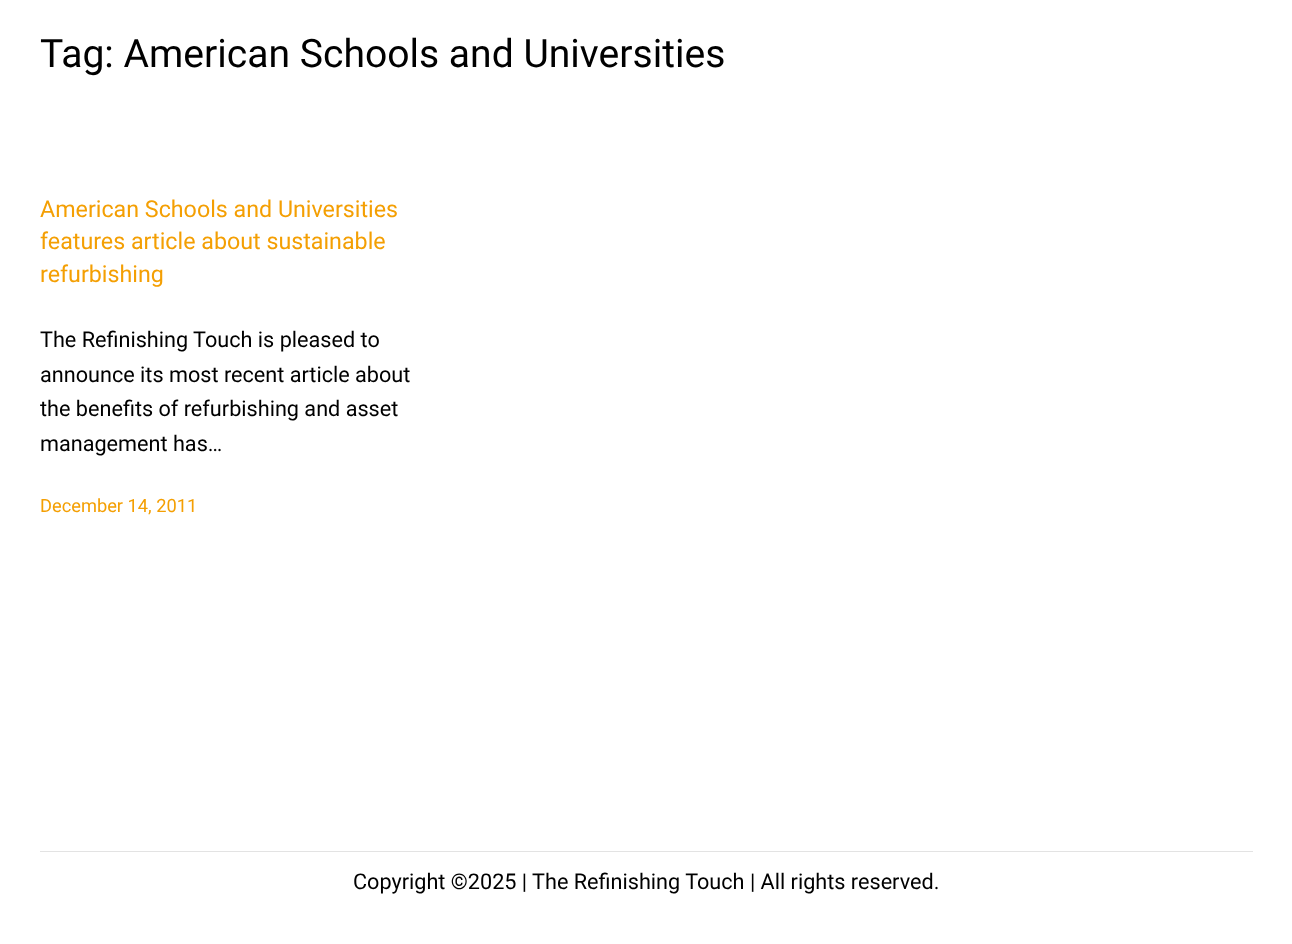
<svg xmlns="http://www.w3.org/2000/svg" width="1292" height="944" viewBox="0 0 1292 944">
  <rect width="100%" height="100%" fill="#fff"/>
  <path d="M40 851h1213v1H40z" fill="#e3e3e3"/>
  <text x="40" y="67" font-family="Roboto" font-size="39.1" fill="#000">Tag: American Schools and Universities</text>
  <g font-family="Roboto" font-size="23.25" fill="#f49f03">
    <text x="40" y="217">American Schools and Universities</text>
    <text x="40" y="249">features article about sustainable</text>
    <text x="40" y="282">refurbishing</text>
  </g>
  <g font-family="Roboto" font-size="21.65" fill="#000">
    <text x="40" y="347">The Refinishing Touch is pleased to</text>
    <text x="40" y="382">announce its most recent article about</text>
    <text x="40" y="416">the benefits of refurbishing and asset</text>
    <text x="40" y="451">management has…</text>
  </g>
  <text x="40" y="512" font-family="Roboto" font-size="18.25" fill="#f49f03">December 14, 2011</text>
  <text x="353" y="889" font-family="Roboto" font-size="21.65" fill="#000">Copyright ©2025 | The Refinishing Touch | All rights reserved.</text>
</svg>
